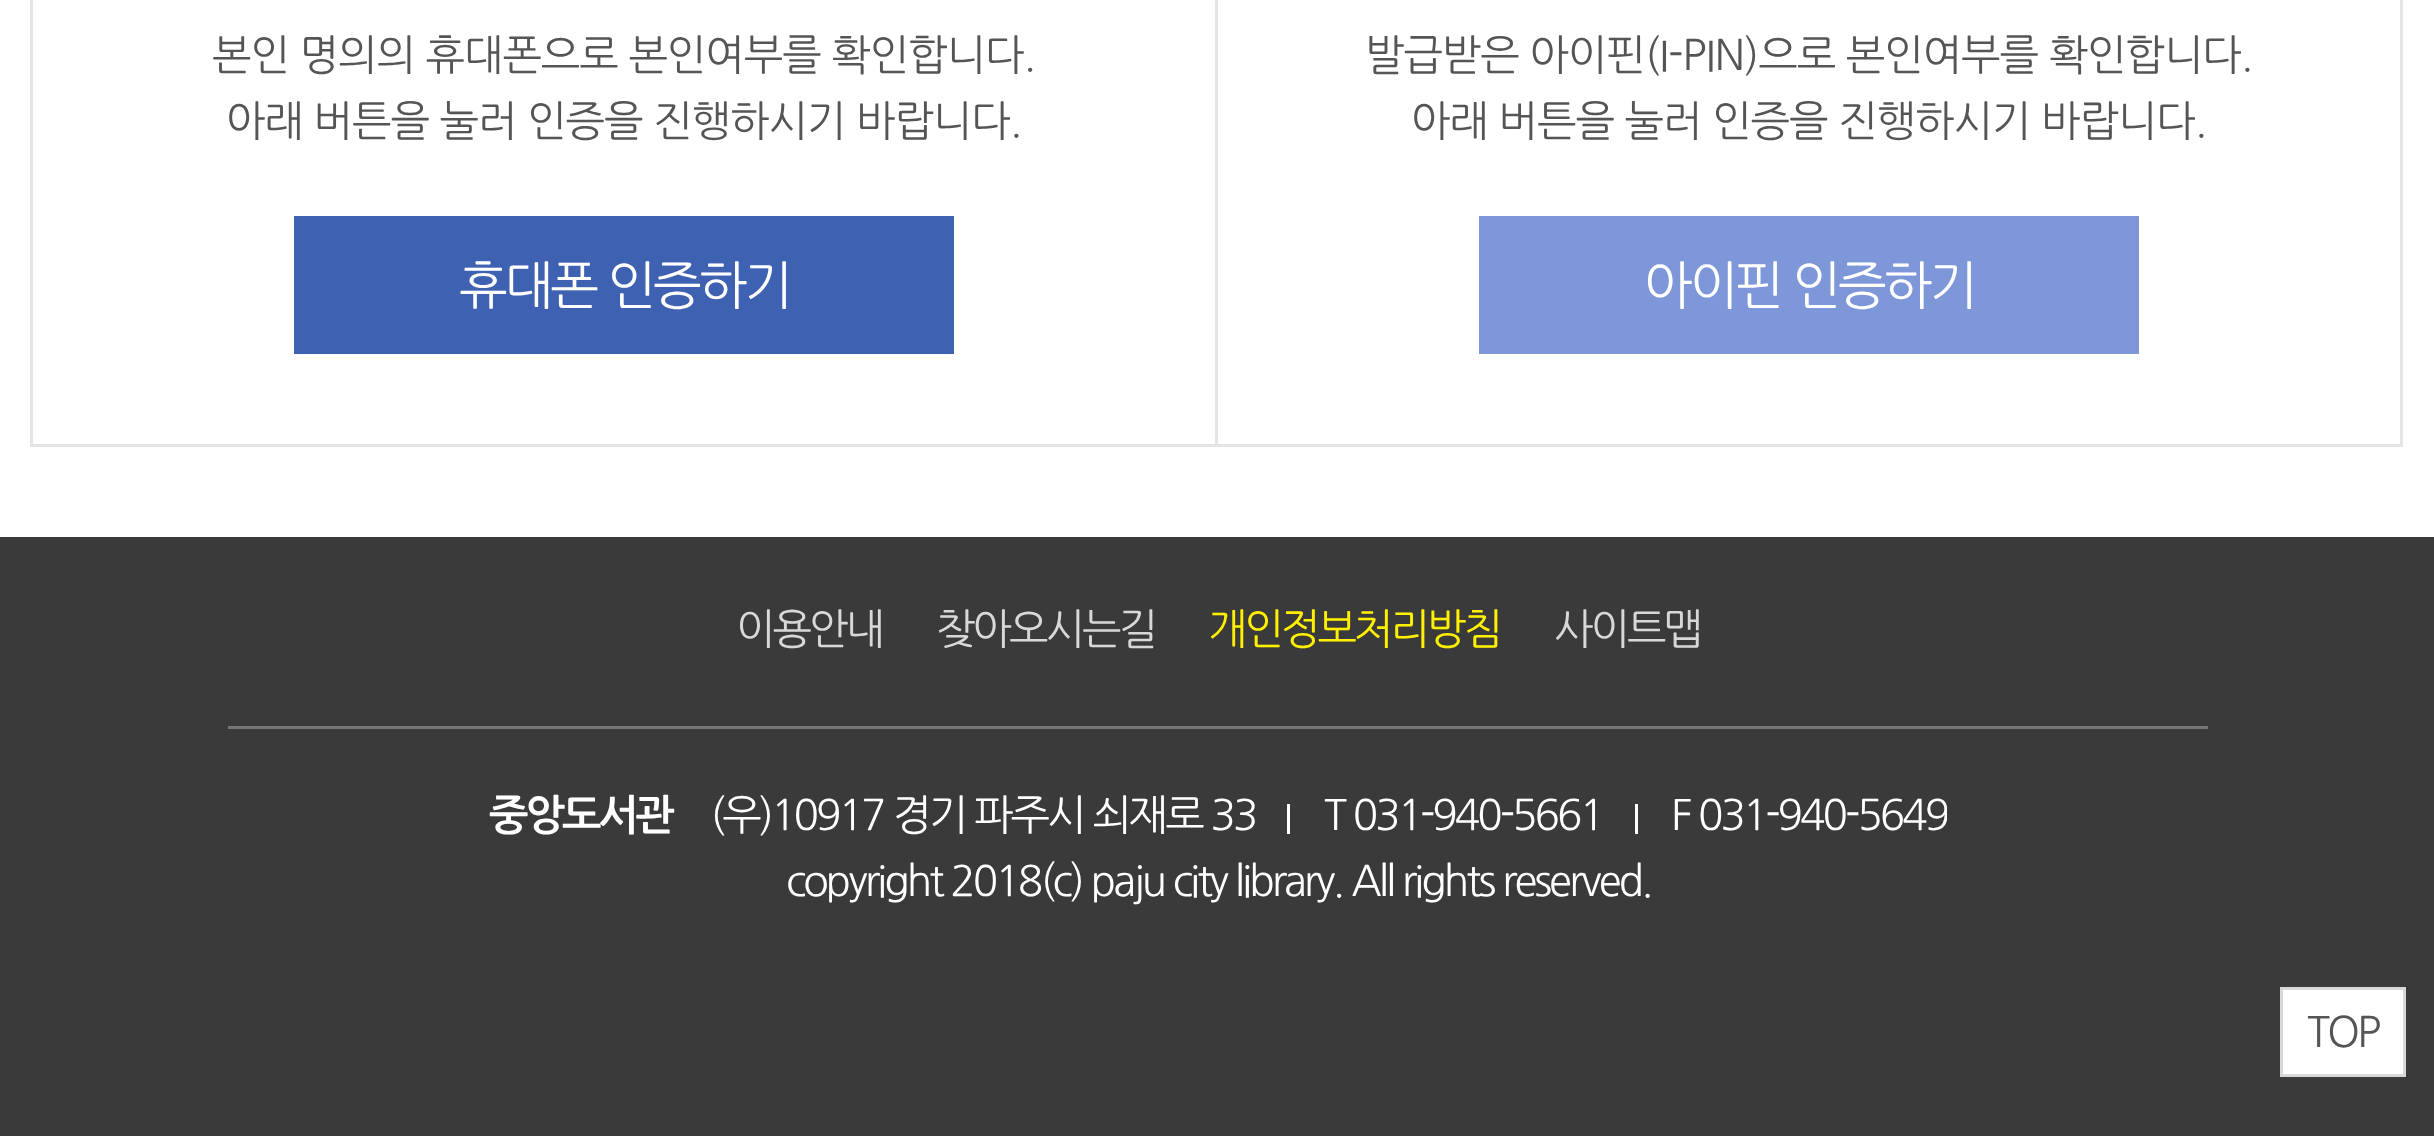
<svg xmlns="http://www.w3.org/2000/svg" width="2434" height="1136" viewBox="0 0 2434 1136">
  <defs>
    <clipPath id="clip1"><path d="M711 786h1236v66H711z"/></clipPath>
  </defs>
  <rect width="100%" height="100%" fill="#fff"/>
  <path d="M31.5 -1.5h1185v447H31.5z" fill="none" stroke="#e4e4e4" stroke-width="3"/>
  <path d="M294 216h660v138H294z" fill="#3e61b2"/>
  <path d="M1216.5 -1.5h1185v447H1216.5z" fill="none" stroke="#e4e4e4" stroke-width="3"/>
  <path d="M1479 216h660v138H1479z" fill="#7e97d9"/>
  <path d="M0 537h2434v599H0z" fill="#3a3a3a"/>
  <path d="M228 726h1980v3H228z" fill="#757575"/>
  <path d="M1287 804h3v30H1287z" fill="#fff"/>
  <path d="M1635 804h3v30H1635z" fill="#fff"/>
  <path d="M2281.5 988.5h123v87H2281.5z" fill="#fff" stroke="#d9d9d9" stroke-width="3"/>
  <g font-family="NanumGothic" font-size="42" letter-spacing="-1.05" fill="#555">
    <text x="212" y="70">본인 명의의 휴대폰으로 본인여부를 확인합니다.</text>
    <text x="226" y="136">아래 버튼을 눌러 인증을 진행하시기 바랍니다.</text>
  </g>
  <text x="459" y="304" font-family="NanumGothic" font-size="51.75" letter-spacing="-3" fill="#fff">휴대폰 인증하기</text>
  <g font-family="NanumGothic" font-size="42" letter-spacing="-1.05" fill="#555">
    <text x="1365" y="70">발급받은 아이핀(I-PIN)으로 본인여부를 확인합니다.</text>
    <text x="1411" y="136">아래 버튼을 눌러 인증을 진행하시기 바랍니다.</text>
  </g>
  <text x="1644" y="304" font-family="NanumGothic" font-size="51.75" letter-spacing="-3" fill="#fff">아이핀 인증하기</text>
  <g font-family="NanumGothic" font-size="42" letter-spacing="-2.98" fill="#d8d8d8">
    <text x="736" y="644">이용안내</text>
    <text x="936" y="644">찾아오시는길</text>
  </g>
  <text x="1208" y="644" font-family="NanumGothic" font-size="42" letter-spacing="-2.98" fill="#fff000">개인정보처리방침</text>
  <text x="1554" y="644" font-family="NanumGothic" font-size="42" letter-spacing="-2.98" fill="#d8d8d8">사이트맵</text>
  <text x="489" y="830" font-family="NanumGothic" font-size="42" font-weight="bold" letter-spacing="-2.98" fill="#fff">중앙도서관</text>
  <g font-family="NanumGothic" font-size="42" letter-spacing="-2.98" fill="#fff">
    <text x="710" y="830">(우)10917 경기 파주시 쇠재로 33</text>
    <text x="1324" y="830">T 031-940-5661</text>
  </g>
  <g clip-path="url(#clip1)">
    <text x="1671" y="830" font-family="NanumGothic" font-size="42" letter-spacing="-2.98" fill="#fff">F 031-940-5649</text>
  </g>
  <text x="786" y="896" font-family="NanumGothic" font-size="42" letter-spacing="-2.98" fill="#fff">copyright 2018(c) paju city library. All rights reserved.</text>
  <text x="2307" y="1047" font-family="NanumGothic" font-size="42" letter-spacing="-2.98" fill="#555">TOP</text>
</svg>
